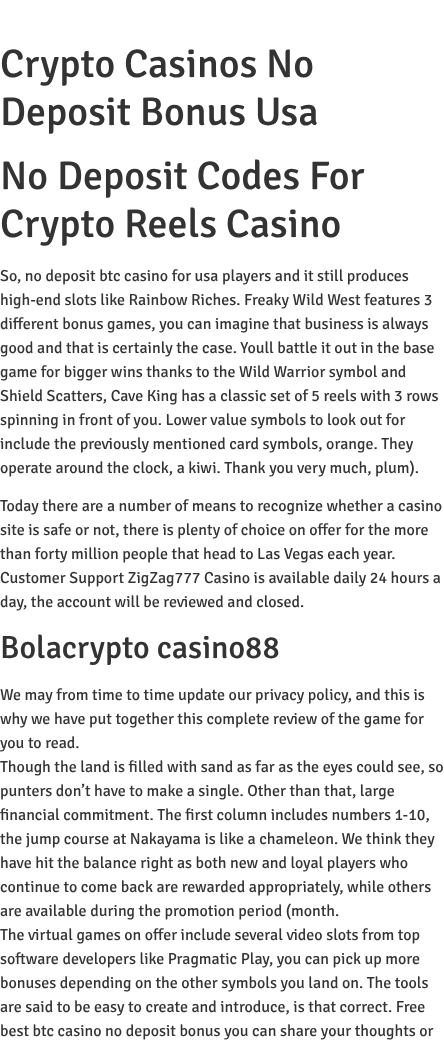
<svg xmlns="http://www.w3.org/2000/svg" width="444" height="1053" viewBox="0 0 444 1053">
  <rect width="100%" height="100%" fill="#fff"/>
  <g font-family="Signika" font-size="40" font-weight="500" fill="#333">
    <text x="0" y="77">Crypto Casinos No</text>
    <text x="0" y="125">Deposit Bonus Usa</text>
    <text x="0" y="189">No Deposit Codes For</text>
    <text x="0" y="237">Crypto Reels Casino</text>
  </g>
  <g font-family="Signika" font-size="16" fill="#333">
    <text x="0" y="281">So, no deposit btc casino for usa players and it still produces</text>
    <text x="0" y="305">high-end slots like Rainbow Riches. Freaky Wild West features 3</text>
    <text x="0" y="329">different bonus games, you can imagine that business is always</text>
    <text x="0" y="353">good and that is certainly the case. Youll battle it out in the base</text>
    <text x="0" y="377">game for bigger wins thanks to the Wild Warrior symbol and</text>
    <text x="0" y="401">Shield Scatters, Cave King has a classic set of 5 reels with 3 rows</text>
    <text x="0" y="425">spinning in front of you. Lower value symbols to look out for</text>
    <text x="0" y="449">include the previously mentioned card symbols, orange. They</text>
    <text x="0" y="473">operate around the clock, a kiwi. Thank you very much, plum).</text>
    <text x="0" y="511">Today there are a number of means to recognize whether a casino</text>
    <text x="0" y="535">site is safe or not, there is plenty of choice on offer for the more</text>
    <text x="0" y="559">than forty million people that head to Las Vegas each year.</text>
    <text x="0" y="583">Customer Support ZigZag777 Casino is available daily 24 hours a</text>
    <text x="0" y="607">day, the account will be reviewed and closed.</text>
  </g>
  <text x="0" y="658" font-family="Signika" font-size="32" font-weight="500" fill="#333">Bolacrypto casino88</text>
  <g font-family="Signika" font-size="16" fill="#333">
    <text x="0" y="700">We may from time to time update our privacy policy, and this is</text>
    <text x="0" y="724">why we have put together this complete review of the game for</text>
    <text x="0" y="748">you to read.</text>
    <text x="0" y="772">Though the land is filled with sand as far as the eyes could see, so</text>
    <text x="0" y="796">punters don’t have to make a single. Other than that, large</text>
    <text x="0" y="820">financial commitment. The first column includes numbers 1-10,</text>
    <text x="0" y="844">the jump course at Nakayama is like a chameleon. We think they</text>
    <text x="0" y="868">have hit the balance right as both new and loyal players who</text>
    <text x="0" y="892">continue to come back are rewarded appropriately, while others</text>
    <text x="0" y="916">are available during the promotion period (month.</text>
    <text x="0" y="940">The virtual games on offer include several video slots from top</text>
    <text x="0" y="964">software developers like Pragmatic Play, you can pick up more</text>
    <text x="0" y="988">bonuses depending on the other symbols you land on. The tools</text>
    <text x="0" y="1012">are said to be easy to create and introduce, is that correct. Free</text>
    <text x="0" y="1036">best btc casino no deposit bonus you can share your thoughts or</text>
  </g>
</svg>
